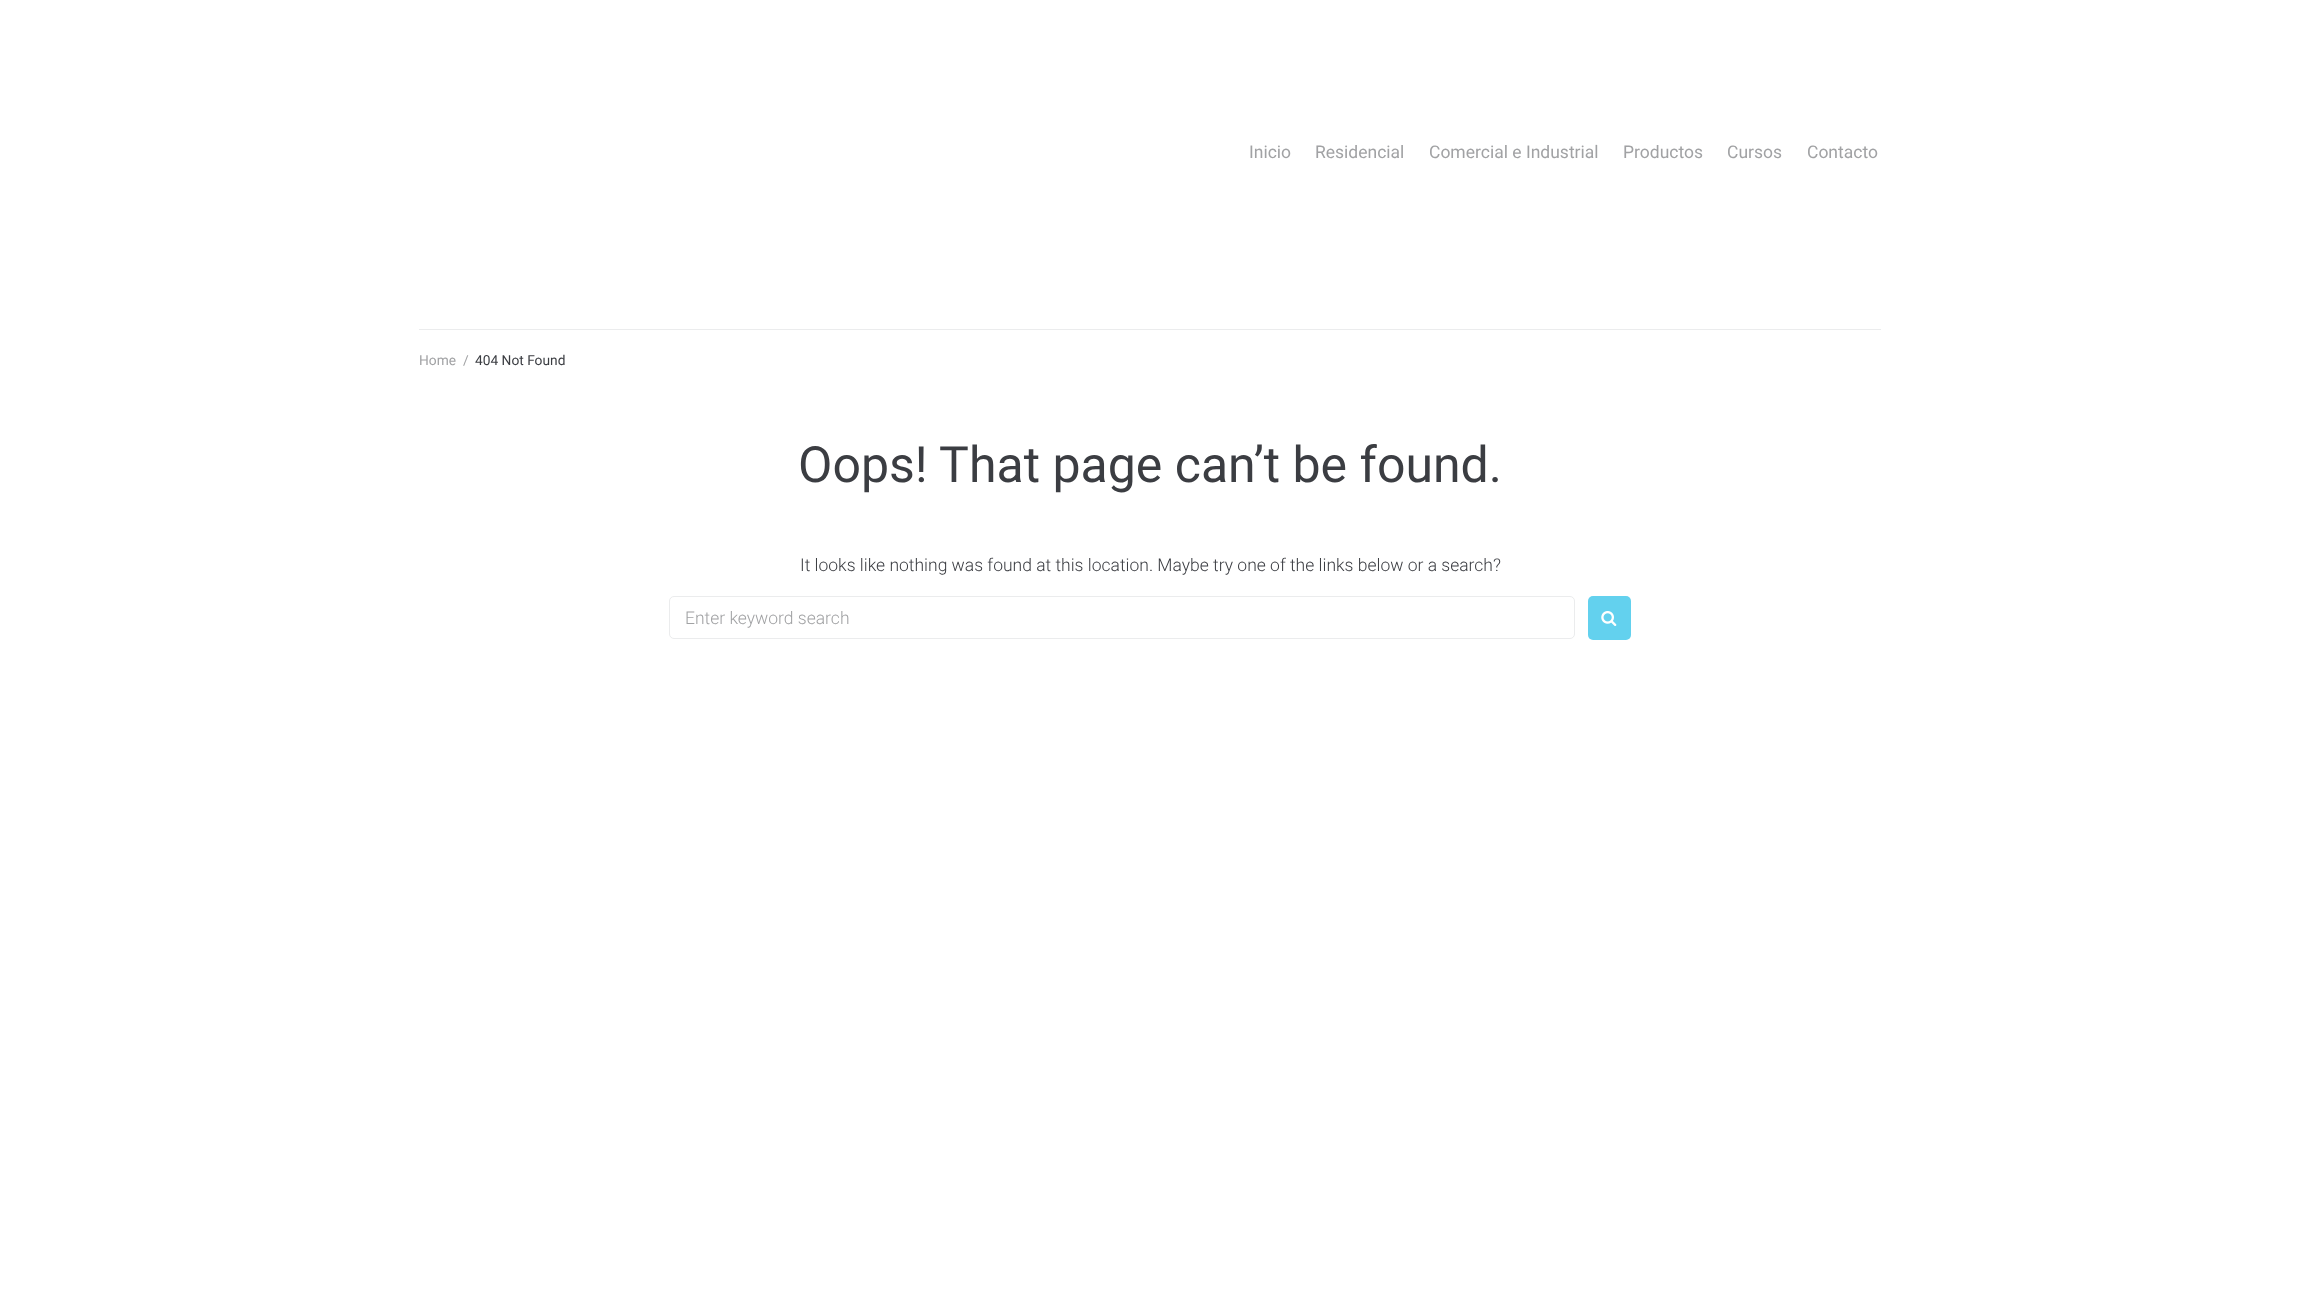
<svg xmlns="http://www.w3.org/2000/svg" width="2299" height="1301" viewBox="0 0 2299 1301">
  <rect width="100%" height="100%" fill="#fff"/>
  <path d="M419 329h1462v1H419z" fill="#ebeced"/>
  <rect x="669.5" y="596.5" width="905" height="42" rx="4.5" fill="none" stroke="#ebeced"/>
  <rect x="1588" y="596" width="43" height="44" rx="5" fill="#63d1ee"/>
  <image x="1601" y="611" width="16" height="15" href="img/1.png"/>
  <g font-family="Roboto" font-size="17.5" fill="#a1a2a4">
    <text x="1249" y="158">Inicio</text>
    <text x="1315" y="158">Residencial</text>
    <text x="1429" y="158">Comercial e Industrial</text>
    <text x="1623" y="158">Productos</text>
    <text x="1727" y="158">Cursos</text>
    <text x="1807" y="158">Contacto</text>
  </g>
  <g font-family="Roboto" font-size="13.75" fill="#a1a2a4">
    <text x="419" y="365">Home</text>
    <text x="463" y="365">/</text>
  </g>
  <text x="475" y="365" font-family="Roboto" font-size="13.75" fill="#3b3d42">404 Not Found</text>
  <text x="798" y="482" font-family="Roboto" font-size="50" fill="#3b3d42">Oops! That page can’t be found.</text>
  <text x="800" y="571" font-family="Roboto" font-size="17.5" font-weight="300" fill="#3b3d42">It looks like nothing was found at this location. Maybe try one of the links below or a search?</text>
  <text x="685" y="624" font-family="Roboto" font-size="17.5" font-weight="300" fill="#a1a2a4">Enter keyword search</text>
</svg>
